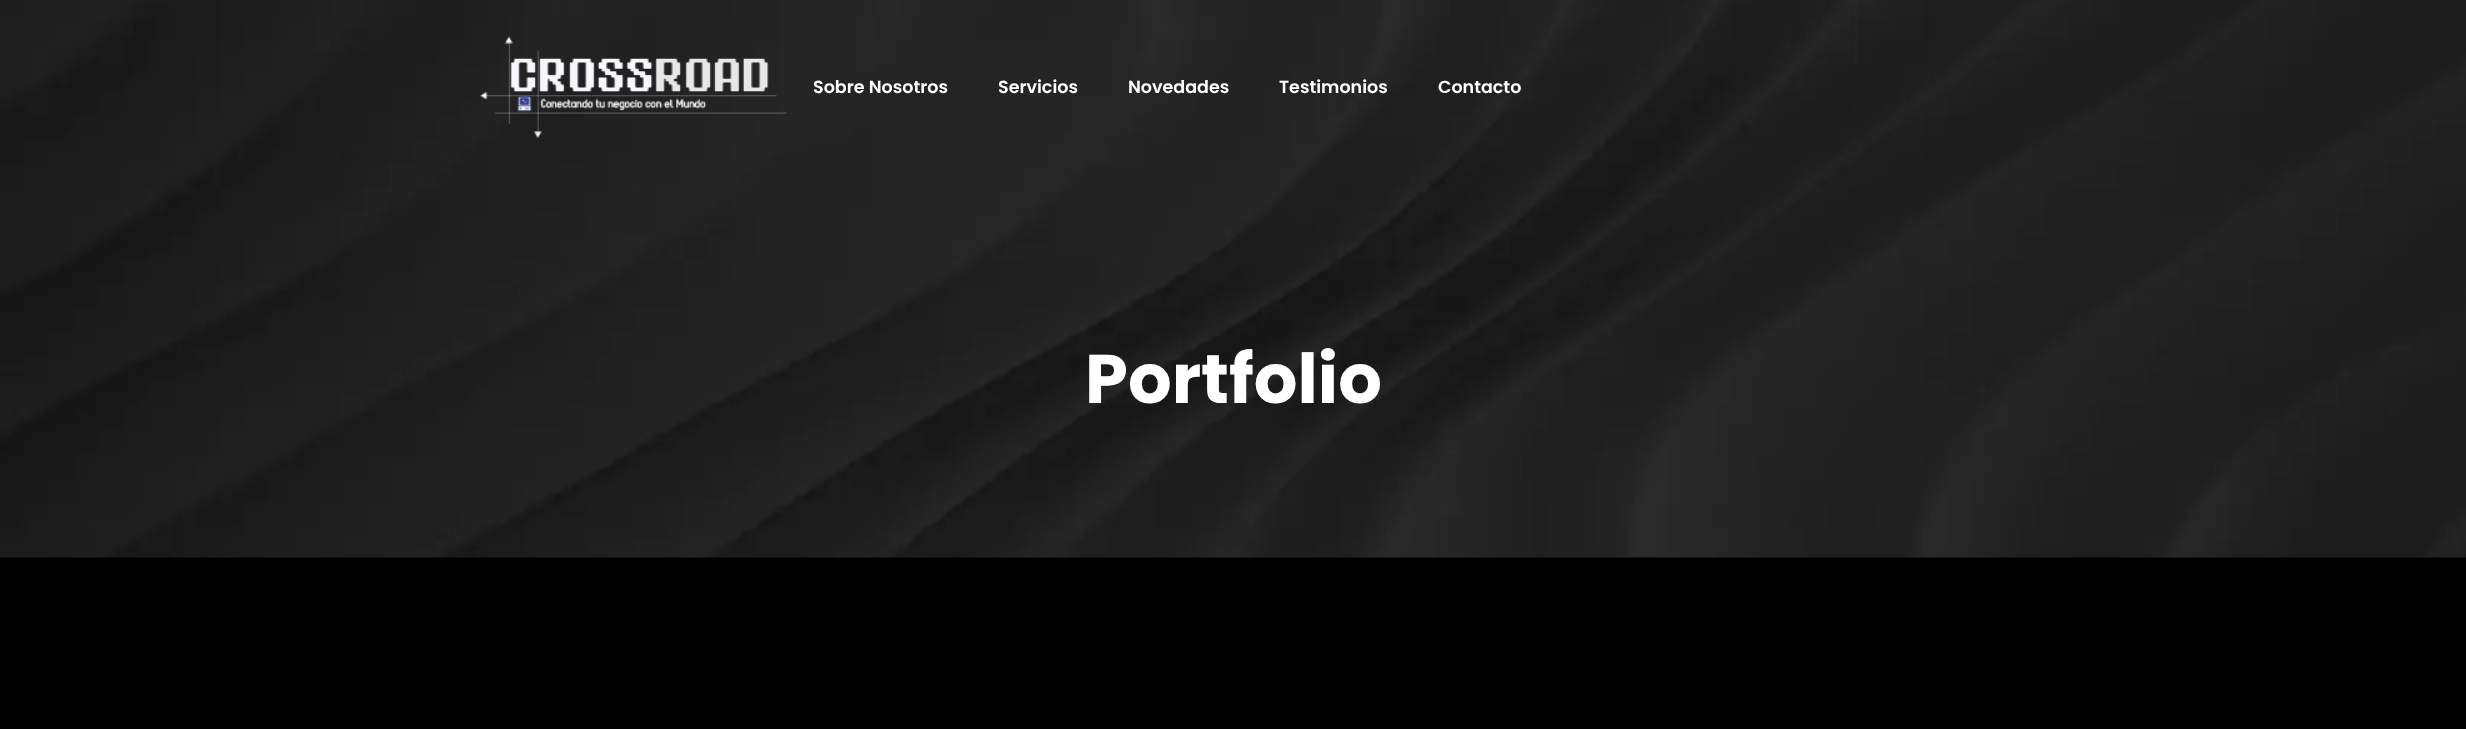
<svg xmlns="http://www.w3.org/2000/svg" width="2466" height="729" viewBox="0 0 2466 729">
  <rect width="100%" height="100%" fill="#000"/>
  <image x="0" y="0" width="2466" height="558" href="img/2.png"/>
  <image x="480" y="36" width="307" height="102" href="img/1.png"/>
  <g font-family="Poppins" font-size="17.5" font-weight="600" fill="#fff">
    <text x="813" y="93">Sobre Nosotros</text>
    <text x="998" y="93">Servicios</text>
    <text x="1128" y="93">Novedades</text>
    <text x="1279" y="93">Testimonios</text>
    <text x="1438" y="93">Contacto</text>
  </g>
  <text x="1085" y="403" font-family="Poppins" font-size="68.75" font-weight="bold" fill="#fff">Portfolio</text>
</svg>
